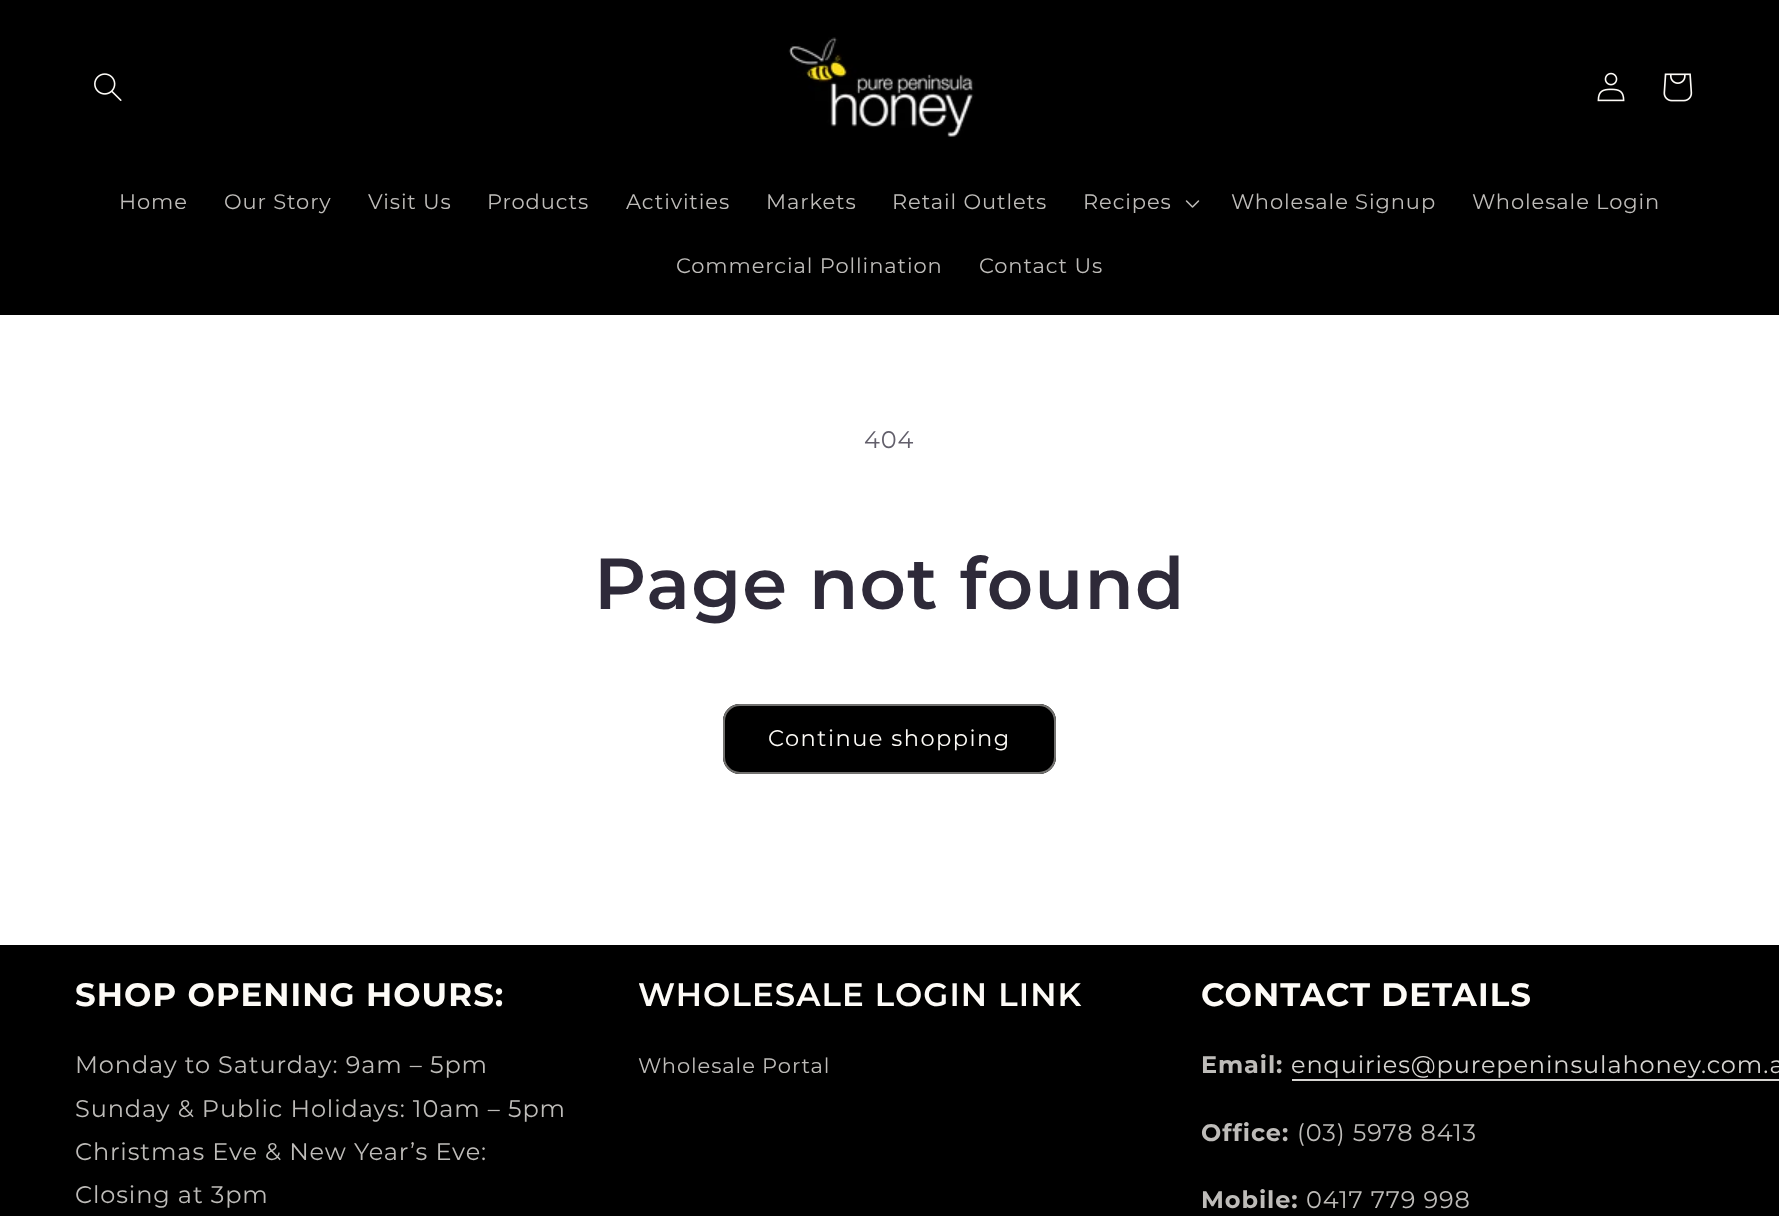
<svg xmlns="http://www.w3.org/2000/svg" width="1779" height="1216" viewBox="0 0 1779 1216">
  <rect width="100%" height="100%" fill="#fff"/>
  <path d="M0 0h1779v315H0z" fill="#000"/>
  <image x="94" y="73" width="28" height="28" href="img/1.png"/>
  <image x="788" y="37" width="187" height="100" href="img/2.png"/>
  <image x="1597" y="72" width="28" height="30" href="img/3.png"/>
  <image x="1663" y="73" width="30" height="29" href="img/4.png"/>
  <image x="1185" y="200" width="15" height="8" href="img/5.png"/>
  <rect x="723" y="704" width="333" height="70" rx="17" fill="#000"/>
  <rect x="724" y="705" width="331" height="68" rx="16" fill="none" stroke="#000" stroke-width="2"/>
  <rect x="724" y="705" width="331" height="68" rx="16" fill="none" stroke="#fdfbf773" stroke-width="2"/>
  <path d="M0 945h1779v271H0z" fill="#000"/>
  <path d="M1292 1079h487v2H1292z" fill="#d7d5d2"/>
  <g font-family="Montserrat" font-size="21" letter-spacing="0.9" fill="#bebcb9">
    <text x="119" y="209">Home</text>
    <text x="224" y="209">Our Story</text>
    <text x="368" y="209">Visit Us</text>
    <text x="487" y="209">Products</text>
    <text x="626" y="209">Activities</text>
    <text x="766" y="209">Markets</text>
    <text x="892" y="209">Retail Outlets</text>
    <text x="1083" y="209">Recipes</text>
    <text x="1231" y="209">Wholesale Signup</text>
    <text x="1472" y="209">Wholesale Login</text>
    <text x="676" y="273">Commercial Pollination</text>
    <text x="979" y="273">Contact Us</text>
  </g>
  <text x="864" y="448" font-family="Montserrat" font-size="24" letter-spacing="0.9" fill="#625f6b">404</text>
  <text x="594" y="609" font-family="Montserrat" font-size="72" font-weight="600" letter-spacing="1.1" fill="#2e2a39">Page not found</text>
  <text x="768" y="746" font-family="Montserrat" font-size="22.5" letter-spacing="1.5" fill="#fdfbf7">Continue shopping</text>
  <text x="75" y="1006" font-family="Montserrat" font-size="32.4" font-weight="bold" letter-spacing="1.1" fill="#fdfbf7">SHOP OPENING HOURS:</text>
  <g font-family="Montserrat" font-size="24" letter-spacing="0.9" fill="#bebcb9">
    <text x="75" y="1073">Monday to Saturday: 9am – 5pm</text>
    <text x="75" y="1117">Sunday &amp; Public Holidays: 10am – 5pm</text>
    <text x="75" y="1160">Christmas Eve &amp; New Year’s Eve:</text>
    <text x="75" y="1203">Closing at 3pm</text>
  </g>
  <text x="638" y="1006" font-family="Montserrat" font-size="32.4" font-weight="600" letter-spacing="1.1" fill="#fdfbf7">WHOLESALE LOGIN LINK</text>
  <text x="638" y="1073" font-family="Montserrat" font-size="21" letter-spacing="0.9" fill="#bebcb9">Wholesale Portal</text>
  <text x="1201" y="1006" font-family="Montserrat" font-size="32.4" font-weight="bold" letter-spacing="1.1" fill="#fdfbf7">CONTACT DETAILS</text>
  <text x="1201" y="1073" font-family="Montserrat" font-size="24" font-weight="bold" letter-spacing="0.9" fill="#bebcb9">Email:</text>
  <text x="1291" y="1073" font-family="Montserrat" font-size="24" letter-spacing="0.9" fill="#d7d5d2">enquiries@purepeninsulahoney.com.a</text>
  <text x="1201" y="1141" font-family="Montserrat" font-size="24" font-weight="bold" letter-spacing="0.9" fill="#bebcb9">Office:</text>
  <text x="1297" y="1141" font-family="Montserrat" font-size="24" letter-spacing="0.9" fill="#bebcb9">(03) 5978 8413</text>
  <text x="1201" y="1208" font-family="Montserrat" font-size="24" font-weight="bold" letter-spacing="0.9" fill="#bebcb9">Mobile:</text>
  <text x="1306" y="1208" font-family="Montserrat" font-size="24" letter-spacing="0.9" fill="#bebcb9">0417 779 998</text>
</svg>
